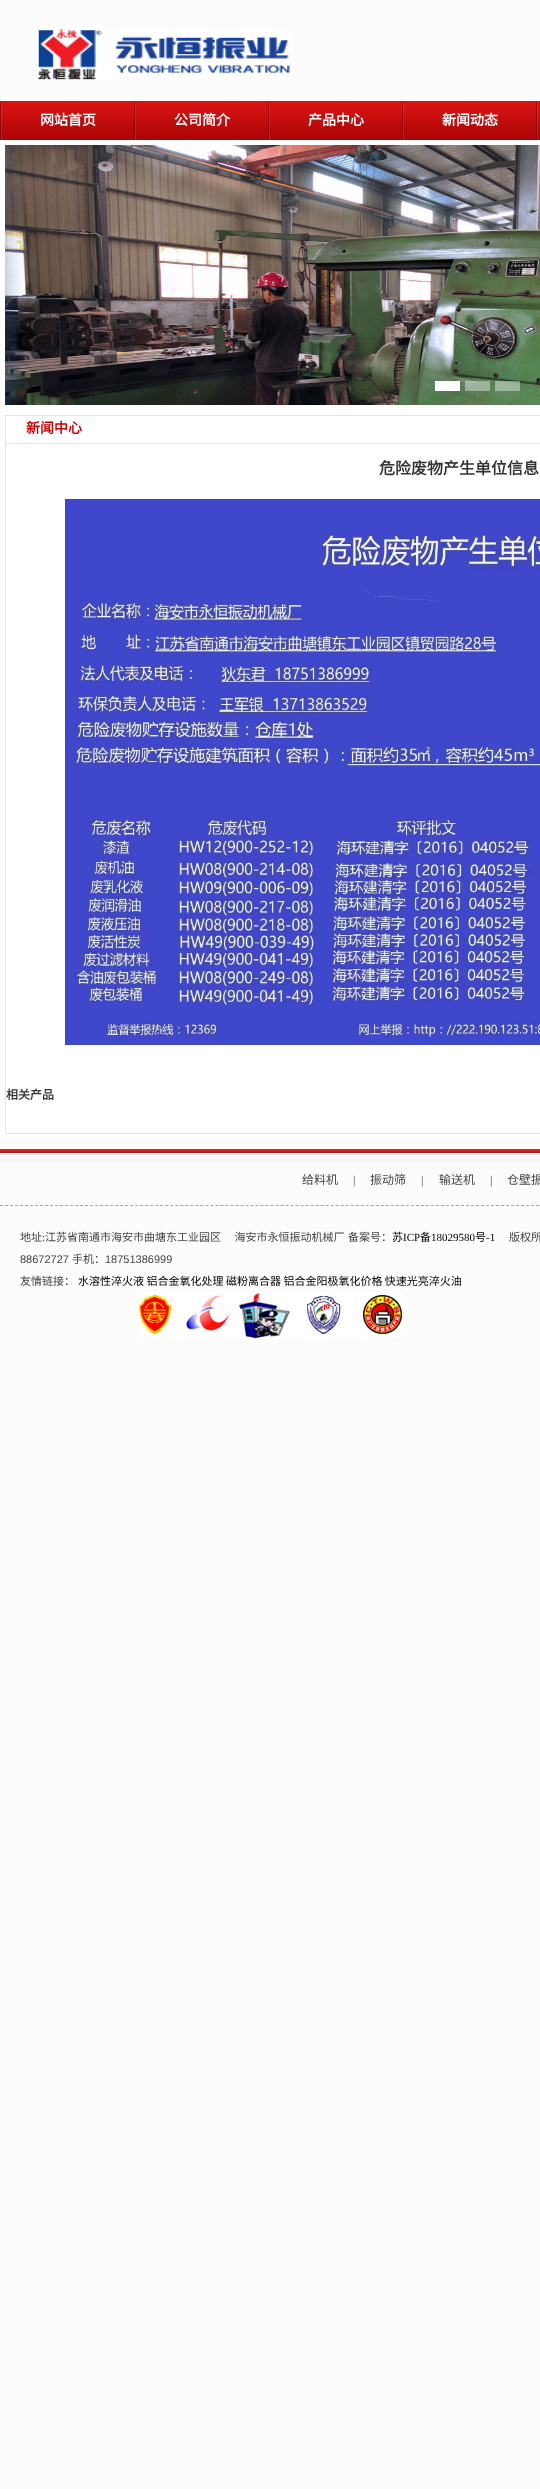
<svg xmlns="http://www.w3.org/2000/svg" width="540" height="2489" viewBox="0 0 540 2489">
  <rect width="100%" height="100%" fill="#fcfcfc"/>
  <image x="37" y="29" width="253" height="51" href="img/1.png"/>
  <image x="2" y="101" width="538" height="39" href="img/2.png"/>
  <image x="0" y="101" width="2" height="39" href="img/3.png"/>
  <image x="134" y="101" width="2" height="39" href="img/3.png"/>
  <image x="268" y="101" width="2" height="39" href="img/3.png"/>
  <image x="402" y="101" width="2" height="39" href="img/3.png"/>
  <image x="536" y="101" width="2" height="39" href="img/3.png"/>
  <path d="M0 140h540v999H0z" fill="#fff"/>
  <image x="5" y="145" width="535" height="260" href="img/4.png"/>
  <path d="M435 381h25v10H435z" fill="#fff"/>
  <path d="M465 381h25v10H465z" fill="#ffffff66"/>
  <path d="M495 381h25v10H495z" fill="#ffffff66"/>
  <path d="M5.5 415.5h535v28H5.5z" fill="none" stroke="#e3e3e3"/>
  <path d="M5 1133h535v1H5z" fill="#e3e3e3"/>
  <path d="M5 444h1v690H5z" fill="#e3e3e3"/>
  <image x="65" y="499" width="475" height="546" href="img/5.png"/>
  <image x="0" y="1149" width="540" height="14" href="img/6.png"/>
  <path d="M0 1205.5H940" fill="none" stroke="#a5a5a5" stroke-dasharray="3 2.01"/>
  <image x="139" y="1292" width="263" height="47" href="img/7.png"/>
  <g font-family="Noto Sans CJK SC" font-size="14" font-weight="bold" fill="#fff">
    <text x="40" y="125">网站首页</text>
    <text x="174" y="125">公司简介</text>
    <text x="308" y="125">产品中心</text>
    <text x="442" y="125">新闻动态</text>
  </g>
  <text x="26" y="433" font-family="Noto Sans CJK SC" font-size="14" font-weight="bold" fill="#c00">新闻中心</text>
  <text x="379" y="474" font-family="Noto Sans CJK SC" font-size="16" font-weight="bold" fill="#333">危险废物产生单位信息</text>
  <text x="6" y="1099" font-family="Noto Sans CJK SC" font-size="12" font-weight="bold" fill="#333">相关产品</text>
  <text x="302" y="1184" font-family="Noto Sans CJK SC" font-size="12" fill="#454545">给料机</text>
  <text x="353" y="1184" font-family="Liberation Serif" font-size="12" fill="#454545">|</text>
  <text x="370" y="1184" font-family="Noto Sans CJK SC" font-size="12" fill="#454545">振动筛</text>
  <text x="421" y="1184" font-family="Liberation Serif" font-size="12" fill="#454545">|</text>
  <text x="439" y="1184" font-family="Noto Sans CJK SC" font-size="12" fill="#454545">输送机</text>
  <text x="490" y="1184" font-family="Liberation Serif" font-size="12" fill="#454545">|</text>
  <text x="507" y="1184" font-family="Noto Sans CJK SC" font-size="12" fill="#454545">仓壁振</text>
  <text x="20" y="1241" font-family="Noto Sans CJK SC" font-size="11" fill="#454545">地址</text>
  <text x="42" y="1241" font-family="Liberation Serif" font-size="11" fill="#454545">:</text>
  <g font-family="Noto Sans CJK SC" font-size="11" fill="#454545">
    <text x="45" y="1241">江苏省南通市海安市曲塘东工业园区　 海安市永恒振动机械厂</text>
    <text x="348" y="1241">备案号：</text>
  </g>
  <text x="392" y="1241" font-family="Noto Sans CJK SC" font-size="11" fill="#000">苏</text>
  <text x="403" y="1241" font-family="Liberation Serif" font-size="11" fill="#000">ICP</text>
  <text x="420" y="1241" font-family="Noto Sans CJK SC" font-size="11" fill="#000">备</text>
  <text x="431" y="1241" font-family="Liberation Serif" font-size="11" fill="#000">18029580</text>
  <text x="475" y="1241" font-family="Noto Sans CJK SC" font-size="11" fill="#000">号</text>
  <text x="486" y="1241" font-family="Liberation Serif" font-size="11" fill="#000">-1</text>
  <text x="509" y="1241" font-family="Noto Sans CJK SC" font-size="11" fill="#454545">版权所</text>
  <text x="20" y="1263" font-family="Liberation Sans" font-size="11" fill="#454545">88672727</text>
  <text x="72" y="1263" font-family="Noto Sans CJK SC" font-size="11" fill="#454545">手机：</text>
  <text x="105" y="1263" font-family="Liberation Sans" font-size="11" fill="#454545">18751386999</text>
  <text x="20" y="1285" font-family="Noto Sans CJK SC" font-size="11" fill="#454545">友情链接：</text>
  <text x="78" y="1285" font-family="Noto Sans CJK SC" font-size="11" fill="#000">水溶性淬火液 铝合金氧化处理 磁粉离合器 铝合金阳极氧化价格 快速光亮淬火油</text>
</svg>
